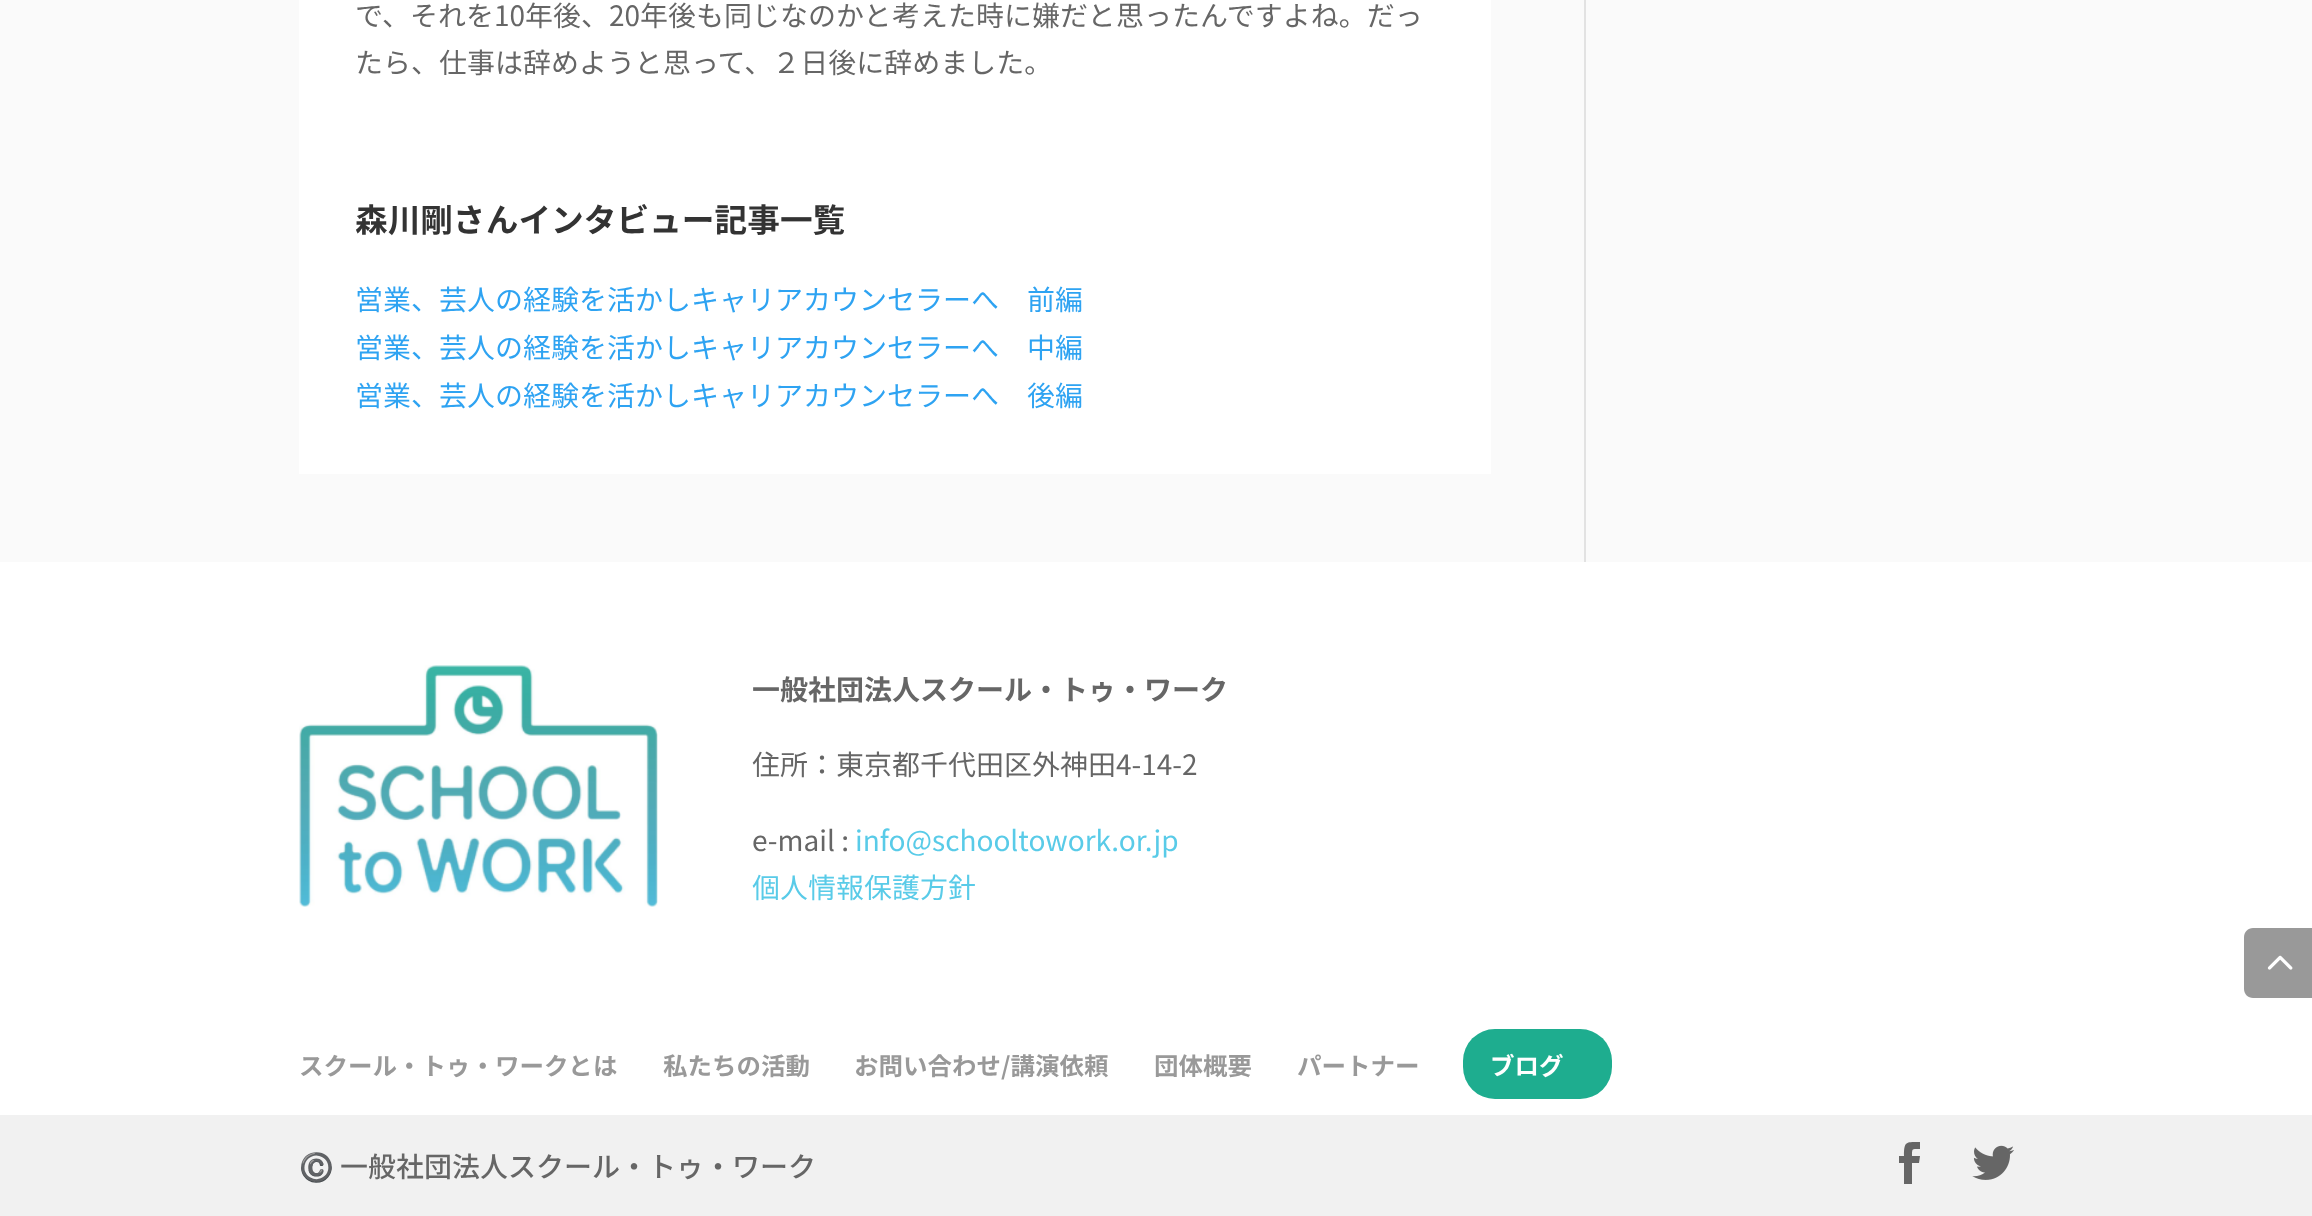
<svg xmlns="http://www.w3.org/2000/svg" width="2312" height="1216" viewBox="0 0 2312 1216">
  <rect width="100%" height="100%" fill="#fff"/>
  <path d="M0 0h2312v562H0z" fill="#fafafa"/>
  <path d="M299 0h1192v474H299z" fill="#fff"/>
  <path d="M1584 0h2v562H1584z" fill="#e2e2e2"/>
  <image x="299" y="665" width="359" height="242" href="img/1.png"/>
  <rect x="1463" y="1029" width="149" height="70" rx="32" fill="#1ead8f"/>
  <path d="M0 1115h2312v101H0z" fill="#f1f1f1"/>
  <path d="M1904 1184H1912V1163H1919L1920 1156H1912C1912 1148 1912 1149 1920 1149V1142C1906 1142 1904 1141 1904 1156H1899V1163H1904Z" fill="#666"/>
  <image x="1972" y="1145" width="42" height="35" href="img/2.png"/>
  <path d="M2253 928H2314V998H2253C2248 998 2244 994 2244 989V937C2244 932 2248 928 2253 928Z" fill="#999"/>
  <image x="2267" y="955" width="26" height="15" href="img/3.png"/>
  <g font-family="Noto Sans JP" font-size="28" fill="#666">
    <text x="355" y="26">で、それを10年後、20年後も同じなのかと考えた時に嫌だと思ったんですよね。だっ</text>
    <text x="355" y="73">たら、仕事は辞めようと思って、２日後に辞めました。</text>
  </g>
  <text x="355" y="232" font-family="Noto Sans JP" font-size="32.7" font-weight="bold" fill="#333">森川剛さんインタビュー記事一覧</text>
  <g font-family="Noto Sans JP" font-size="28" fill="#2ea3f2">
    <text x="355" y="310">営業、芸人の経験を活かしキャリアカウンセラーへ　前編</text>
    <text x="355" y="358">営業、芸人の経験を活かしキャリアカウンセラーへ　中編</text>
    <text x="355" y="406">営業、芸人の経験を活かしキャリアカウンセラーへ　後編</text>
  </g>
  <text x="752" y="700" font-family="Noto Sans JP" font-size="28" font-weight="bold" fill="#666">一般社団法人スクール・トゥ・ワーク</text>
  <g font-family="Noto Sans JP" font-size="28" fill="#666">
    <text x="752" y="775">住所：東京都千代田区外神田4-14-2</text>
    <text x="752" y="851">e-mail :</text>
  </g>
  <g font-family="Noto Sans JP" font-size="28" fill="#59cbe8">
    <text x="855" y="851">info@schooltowork.or.jp</text>
    <text x="752" y="898">個人情報保護方針</text>
  </g>
  <g font-family="Noto Sans JP" font-size="24.5" font-weight="bold" fill="#999">
    <text x="299" y="1075">スクール・トゥ・ワークとは</text>
    <text x="663" y="1075">私たちの活動</text>
    <text x="854" y="1075">お問い合わせ/講演依頼</text>
    <text x="1154" y="1075">団体概要</text>
    <text x="1297" y="1075">パートナー</text>
  </g>
  <text x="1490" y="1075" font-family="Noto Sans JP" font-size="24.5" font-weight="bold" fill="#fff">ブログ</text>
  <text x="299" y="1177" font-family="Noto Color Emoji" font-size="28" fill="#666">©️</text>
  <text x="340" y="1177" font-family="Noto Sans JP" font-size="28" font-weight="500" fill="#666">一般社団法人スクール・トゥ・ワーク</text>
</svg>
